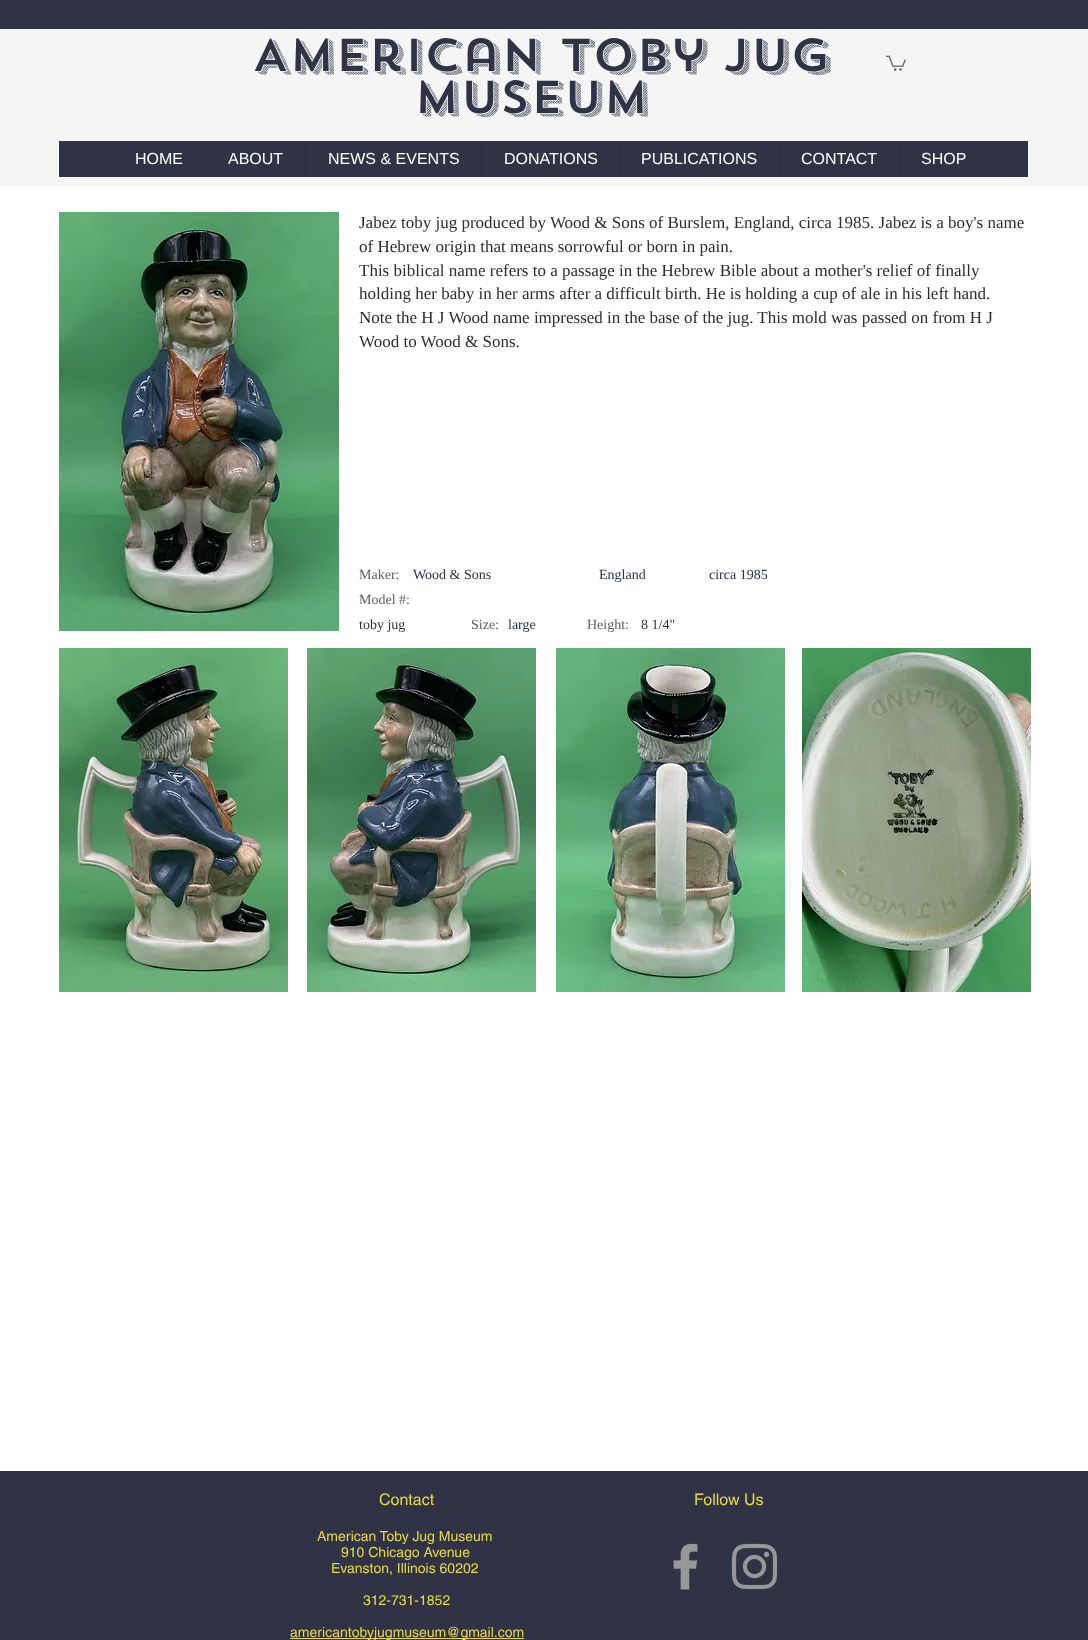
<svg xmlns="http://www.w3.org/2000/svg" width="1088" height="1640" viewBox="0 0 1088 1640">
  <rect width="100%" height="100%" fill="#fff"/>
  <path d="M0 29h1088v157H0z" fill="#f5f5f5"/>
  <path d="M0 0h1088v29H0z" fill="#2f3345"/>
  <image x="886" y="55" width="20" height="16" href="img/1.png"/>
  <path d="M59 141h969v36H59z" fill="#2f3345"/>
  <path d="M205 141h1v36H205z" fill="#2f2e2e"/>
  <path d="M305 141h1v36H305z" fill="#2f2e2e"/>
  <path d="M481 141h1v36H481z" fill="#2f2e2e"/>
  <path d="M619 141h1v36H619z" fill="#2f2e2e"/>
  <path d="M779 141h1v36H779z" fill="#2f2e2e"/>
  <path d="M899 141h1v36H899z" fill="#2f2e2e"/>
  <image x="59" y="212" width="280" height="419" href="img/2.png"/>
  <image x="59" y="648" width="229" height="344" href="img/3.png"/>
  <image x="307" y="648" width="229" height="344" href="img/4.png"/>
  <image x="556" y="648" width="229" height="344" href="img/5.png"/>
  <image x="802" y="648" width="229" height="344" href="img/6.png"/>
  <path d="M0 1471h1088v169H0z" fill="#2f3345"/>
  <path d="M290 1638h234v1H290z" fill="#e8d848"/>
  <image x="673" y="1543" width="25" height="47" href="img/7.png"/>
  <image x="731" y="1543" width="47" height="47" href="img/8.png"/>
  <g font-family="'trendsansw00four'" font-size="46" font-weight="500" fill="#2f3345">
    <text x="252" y="71">American Toby Jug</text>
    <text x="414" y="113">Museum</text>
  </g>
  <g font-family="Liberation Sans" font-size="16" fill="#fff">
    <text x="135" y="164">HOME</text>
    <text x="228" y="164">ABOUT</text>
    <text x="328" y="164">NEWS &amp; EVENTS</text>
    <text x="504" y="164">DONATIONS</text>
    <text x="641" y="164">PUBLICATIONS</text>
    <text x="801" y="164">CONTACT</text>
    <text x="921" y="164">SHOP</text>
  </g>
  <g font-family="Liberation Serif" font-size="17" fill="#2f2e2e">
    <text x="359" y="228">Jabez toby jug produced by Wood &amp; Sons of Burslem, England, circa 1985. Jabez is a boy's name</text>
    <text x="359" y="252">of Hebrew origin that means sorrowful or born in pain.</text>
    <text x="359" y="276">This biblical name refers to a passage in the Hebrew Bible about a mother's relief of finally</text>
    <text x="359" y="299">holding her baby in her arms after a difficult birth. He is holding a cup of ale in his left hand.</text>
    <text x="359" y="323">Note the H J Wood name impressed in the base of the jug. This mold was passed on from H J</text>
    <text x="359" y="347">Wood to Wood &amp; Sons.</text>
  </g>
  <text x="359" y="579" font-family="Liberation Serif" font-size="14" fill="#605e5e">Maker:</text>
  <g font-family="Liberation Serif" font-size="14" fill="#2f3345">
    <text x="413" y="579">Wood &amp; Sons</text>
    <text x="599" y="579">England</text>
    <text x="709" y="579">circa 1985</text>
  </g>
  <text x="359" y="604" font-family="Liberation Serif" font-size="14" fill="#605e5e">Model #:</text>
  <text x="359" y="629" font-family="Liberation Serif" font-size="14" fill="#2f3345">toby jug</text>
  <text x="471" y="629" font-family="Liberation Serif" font-size="14" fill="#605e5e">Size:</text>
  <text x="508" y="629" font-family="Liberation Serif" font-size="14" fill="#2f3345">large</text>
  <text x="587" y="629" font-family="Liberation Serif" font-size="14" fill="#605e5e">Height:</text>
  <text x="641" y="629" font-family="Liberation Serif" font-size="14" fill="#2f3345">8 1/4"</text>
  <g font-family="helvetica" font-size="16" fill="#e8d848">
    <text x="379" y="1505">Contact</text>
    <text x="694" y="1505">Follow Us</text>
  </g>
  <g font-family="helvetica" font-size="14" fill="#e8d848">
    <text x="317" y="1541">American Toby Jug Museum</text>
    <text x="341" y="1557">910 Chicago Avenue</text>
    <text x="331" y="1573">Evanston, Illinois 60202</text>
    <text x="363" y="1605">312-731-1852</text>
    <text x="290" y="1637">americantobyjugmuseum@gmail.com</text>
  </g>
</svg>
